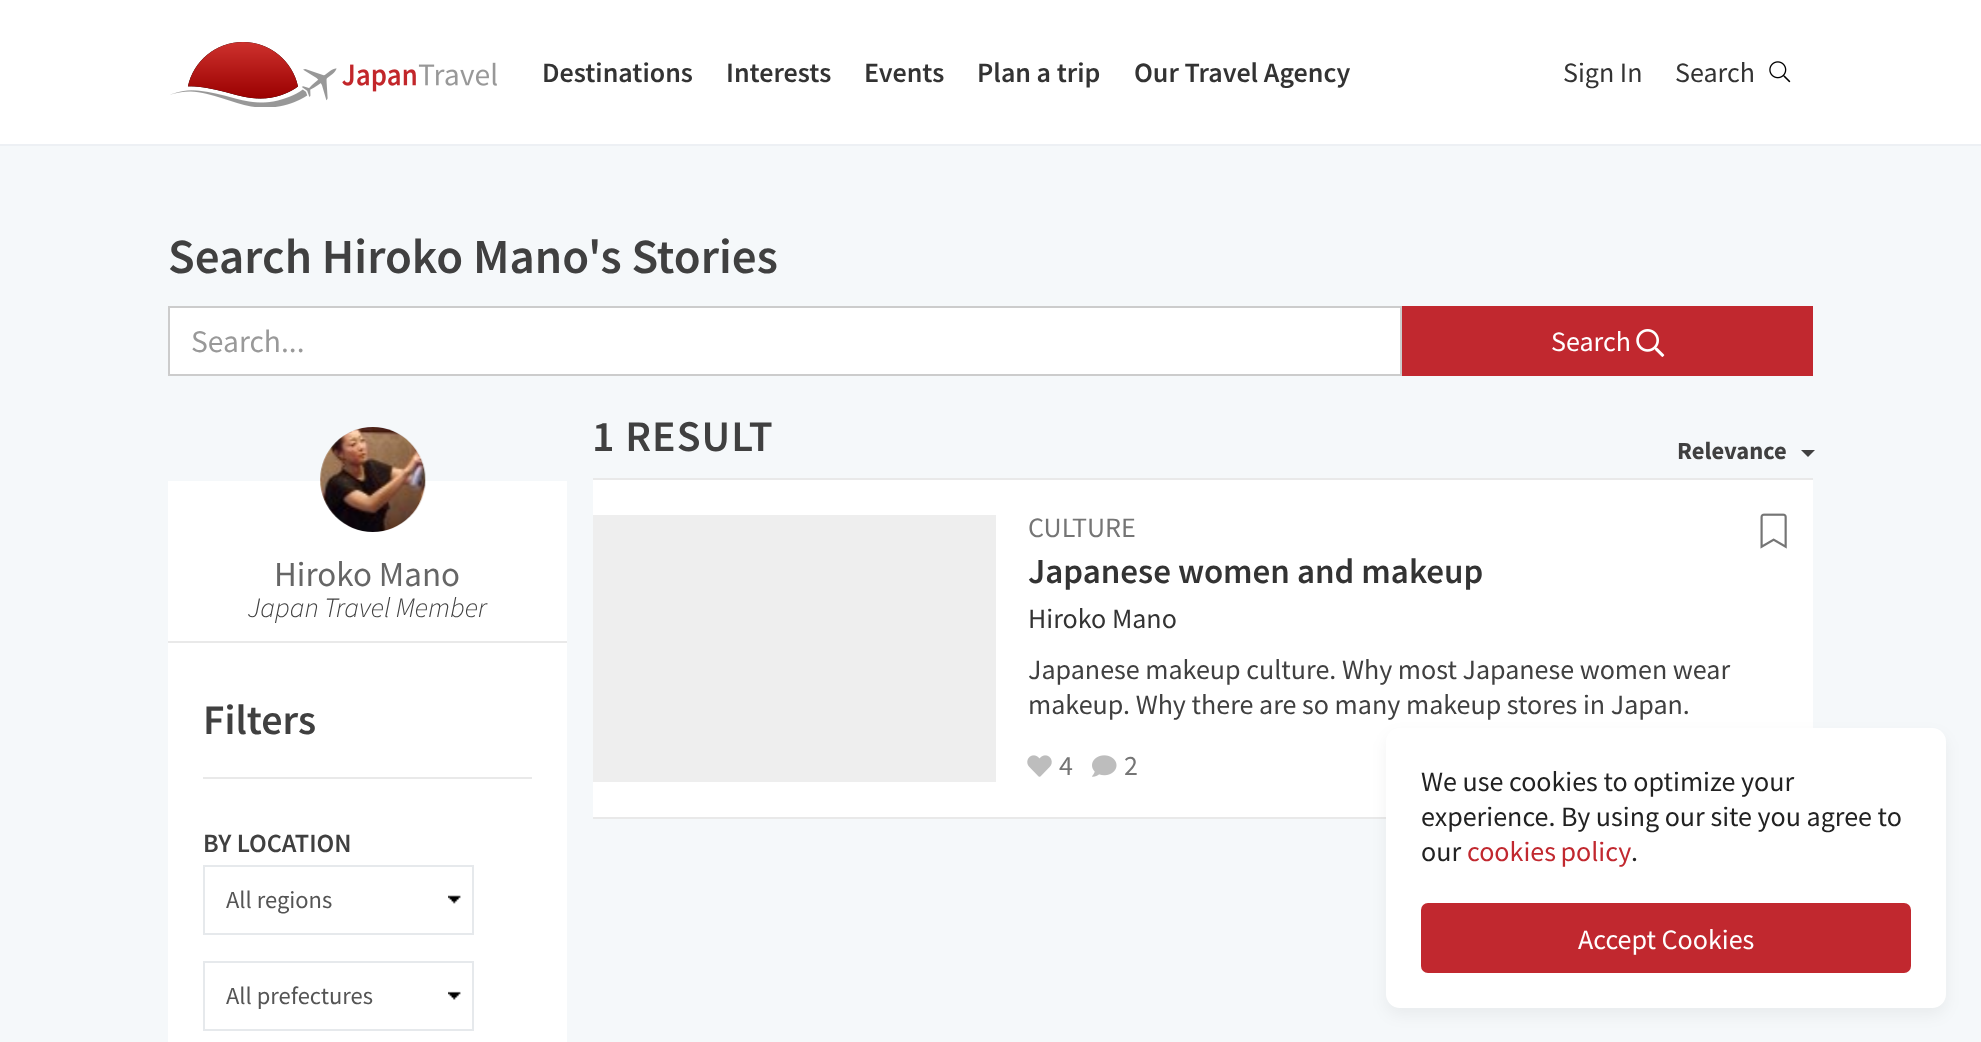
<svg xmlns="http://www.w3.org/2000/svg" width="1981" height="1042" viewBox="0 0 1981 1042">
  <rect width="100%" height="100%" fill="#f5f8fa"/>
  <path d="M0 0h1981v144H0z" fill="#fff"/>
  <path d="M0 144h1981v2H0z" fill="#edf0f4"/>
  <image x="170" y="42" width="327" height="65" href="img/1.png"/>
  <image x="1769" y="61" width="22" height="22" href="img/2.png"/>
  <path d="M169 307h1232v68H169z" fill="#fff" stroke="#ccc" stroke-width="2"/>
  <path d="M1402 306h411v70H1402z" fill="#c1282f"/>
  <image x="1636" y="329" width="29" height="28" href="img/3.png"/>
  <path d="M168 481h399v561H168z" fill="#fff"/>
  <path d="M168 641h399v2H168z" fill="#e9e9e9"/>
  <image x="320" y="427" width="106" height="105" href="img/4.png"/>
  <path d="M203 777h329v2H203z" fill="#e9e9e9"/>
  <image x="448" y="895" width="13" height="9" href="img/5.png"/>
  <path d="M204 866h269v68H204z" fill="none" stroke="#e6e9ec" stroke-width="2"/>
  <image x="448" y="991" width="13" height="9" href="img/6.png"/>
  <path d="M204 962h269v68H204z" fill="none" stroke="#e6e9ec" stroke-width="2"/>
  <path d="M1801 450H1815L1808 457Z" fill="#404040"/>
  <path d="M593 480h1220v337H593z" fill="#fff"/>
  <path d="M593 478h1220v2H593z" fill="#e9e9e9"/>
  <path d="M593 817h793v2H593z" fill="#e9e9e9"/>
  <path d="M593 515h403v267H593z" fill="#eee"/>
  <image x="1760" y="513" width="27" height="36" href="img/7.png"/>
  <image x="1027" y="755" width="25" height="22" href="img/8.png"/>
  <image x="1092" y="755" width="25" height="22" href="img/9.png"/>
  <rect x="1386" y="735" width="560" height="280" rx="14" fill="#0000000d" filter="blur(8px)"/>
  <rect x="1386" y="728" width="560" height="280" rx="14" fill="#fff"/>
  <rect x="1421" y="903" width="490" height="70" rx="7" fill="#c1282f"/>
  <g font-family="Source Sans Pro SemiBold" font-size="28" font-weight="600" fill="#333">
    <text x="542" y="82">Destinations</text>
    <text x="726" y="82">Interests</text>
    <text x="864" y="82">Events</text>
    <text x="977" y="82">Plan a trip</text>
    <text x="1134" y="82">Our Travel Agency</text>
  </g>
  <g font-family="Source Sans Pro" font-size="28" fill="#333">
    <text x="1563" y="82">Sign In</text>
    <text x="1675" y="82">Search</text>
  </g>
  <text x="168" y="273" font-family="Source Sans Pro SemiBold" font-size="49" font-weight="600" fill="#404040">Search Hiroko Mano's Stories</text>
  <text x="191" y="352" font-family="Source Sans Pro" font-size="31.5" fill="#999">Search...</text>
  <text x="1551" y="351" font-family="Source Sans Pro" font-size="28" fill="#fff">Search</text>
  <text x="274" y="586" font-family="Source Sans Pro" font-size="35" fill="#666">Hiroko Mano</text>
  <text x="248" y="617" font-family="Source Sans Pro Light" font-size="28" font-weight="300" font-style="italic" fill="#404040">Japan Travel Member</text>
  <text x="203" y="734" font-family="Source Sans Pro SemiBold" font-size="42" font-weight="600" fill="#404040">Filters</text>
  <text x="203" y="852" font-family="Source Sans Pro SemiBold" font-size="26.25" font-weight="600" fill="#404040">BY LOCATION</text>
  <g font-family="Source Sans Pro" font-size="24.5" fill="#555">
    <text x="226" y="908">All regions</text>
    <text x="226" y="1004">All prefectures</text>
  </g>
  <text x="592" y="451" font-family="Source Sans Pro SemiBold" font-size="43.75" font-weight="600" letter-spacing="1" fill="#404040">1 RESULT</text>
  <text x="1677" y="459" font-family="Source Sans Pro" font-size="24.5" font-weight="bold" fill="#404040">Relevance</text>
  <text x="1028" y="537" font-family="Source Sans Pro" font-size="28" fill="#757575">CULTURE</text>
  <text x="1028" y="583" font-family="Source Sans Pro SemiBold" font-size="35" font-weight="600" fill="#333">Japanese women and makeup</text>
  <text x="1028" y="628" font-family="Source Sans Pro" font-size="28" fill="#333">Hiroko Mano</text>
  <g font-family="Source Sans Pro" font-size="28" fill="#404040">
    <text x="1028" y="679">Japanese makeup culture. Why most Japanese women wear</text>
    <text x="1028" y="714">makeup. Why there are so many makeup stores in Japan.</text>
  </g>
  <g font-family="Source Sans Pro" font-size="28" fill="#757575">
    <text x="1059" y="775">4</text>
    <text x="1124" y="775">2</text>
  </g>
  <g font-family="Source Sans Pro" font-size="28" fill="#222">
    <text x="1421" y="791">We use cookies to optimize your</text>
    <text x="1421" y="826">experience. By using our site you agree to</text>
    <text x="1421" y="861">our</text>
  </g>
  <text x="1467" y="861" word-spacing="-1" font-family="Source Sans Pro" font-size="28" fill="#c1282f">cookies policy</text>
  <text x="1631" y="861" font-family="Source Sans Pro" font-size="28" fill="#222">.</text>
  <text x="1578" y="949" font-family="Source Sans Pro" font-size="28" fill="#fff">Accept Cookies</text>
</svg>
